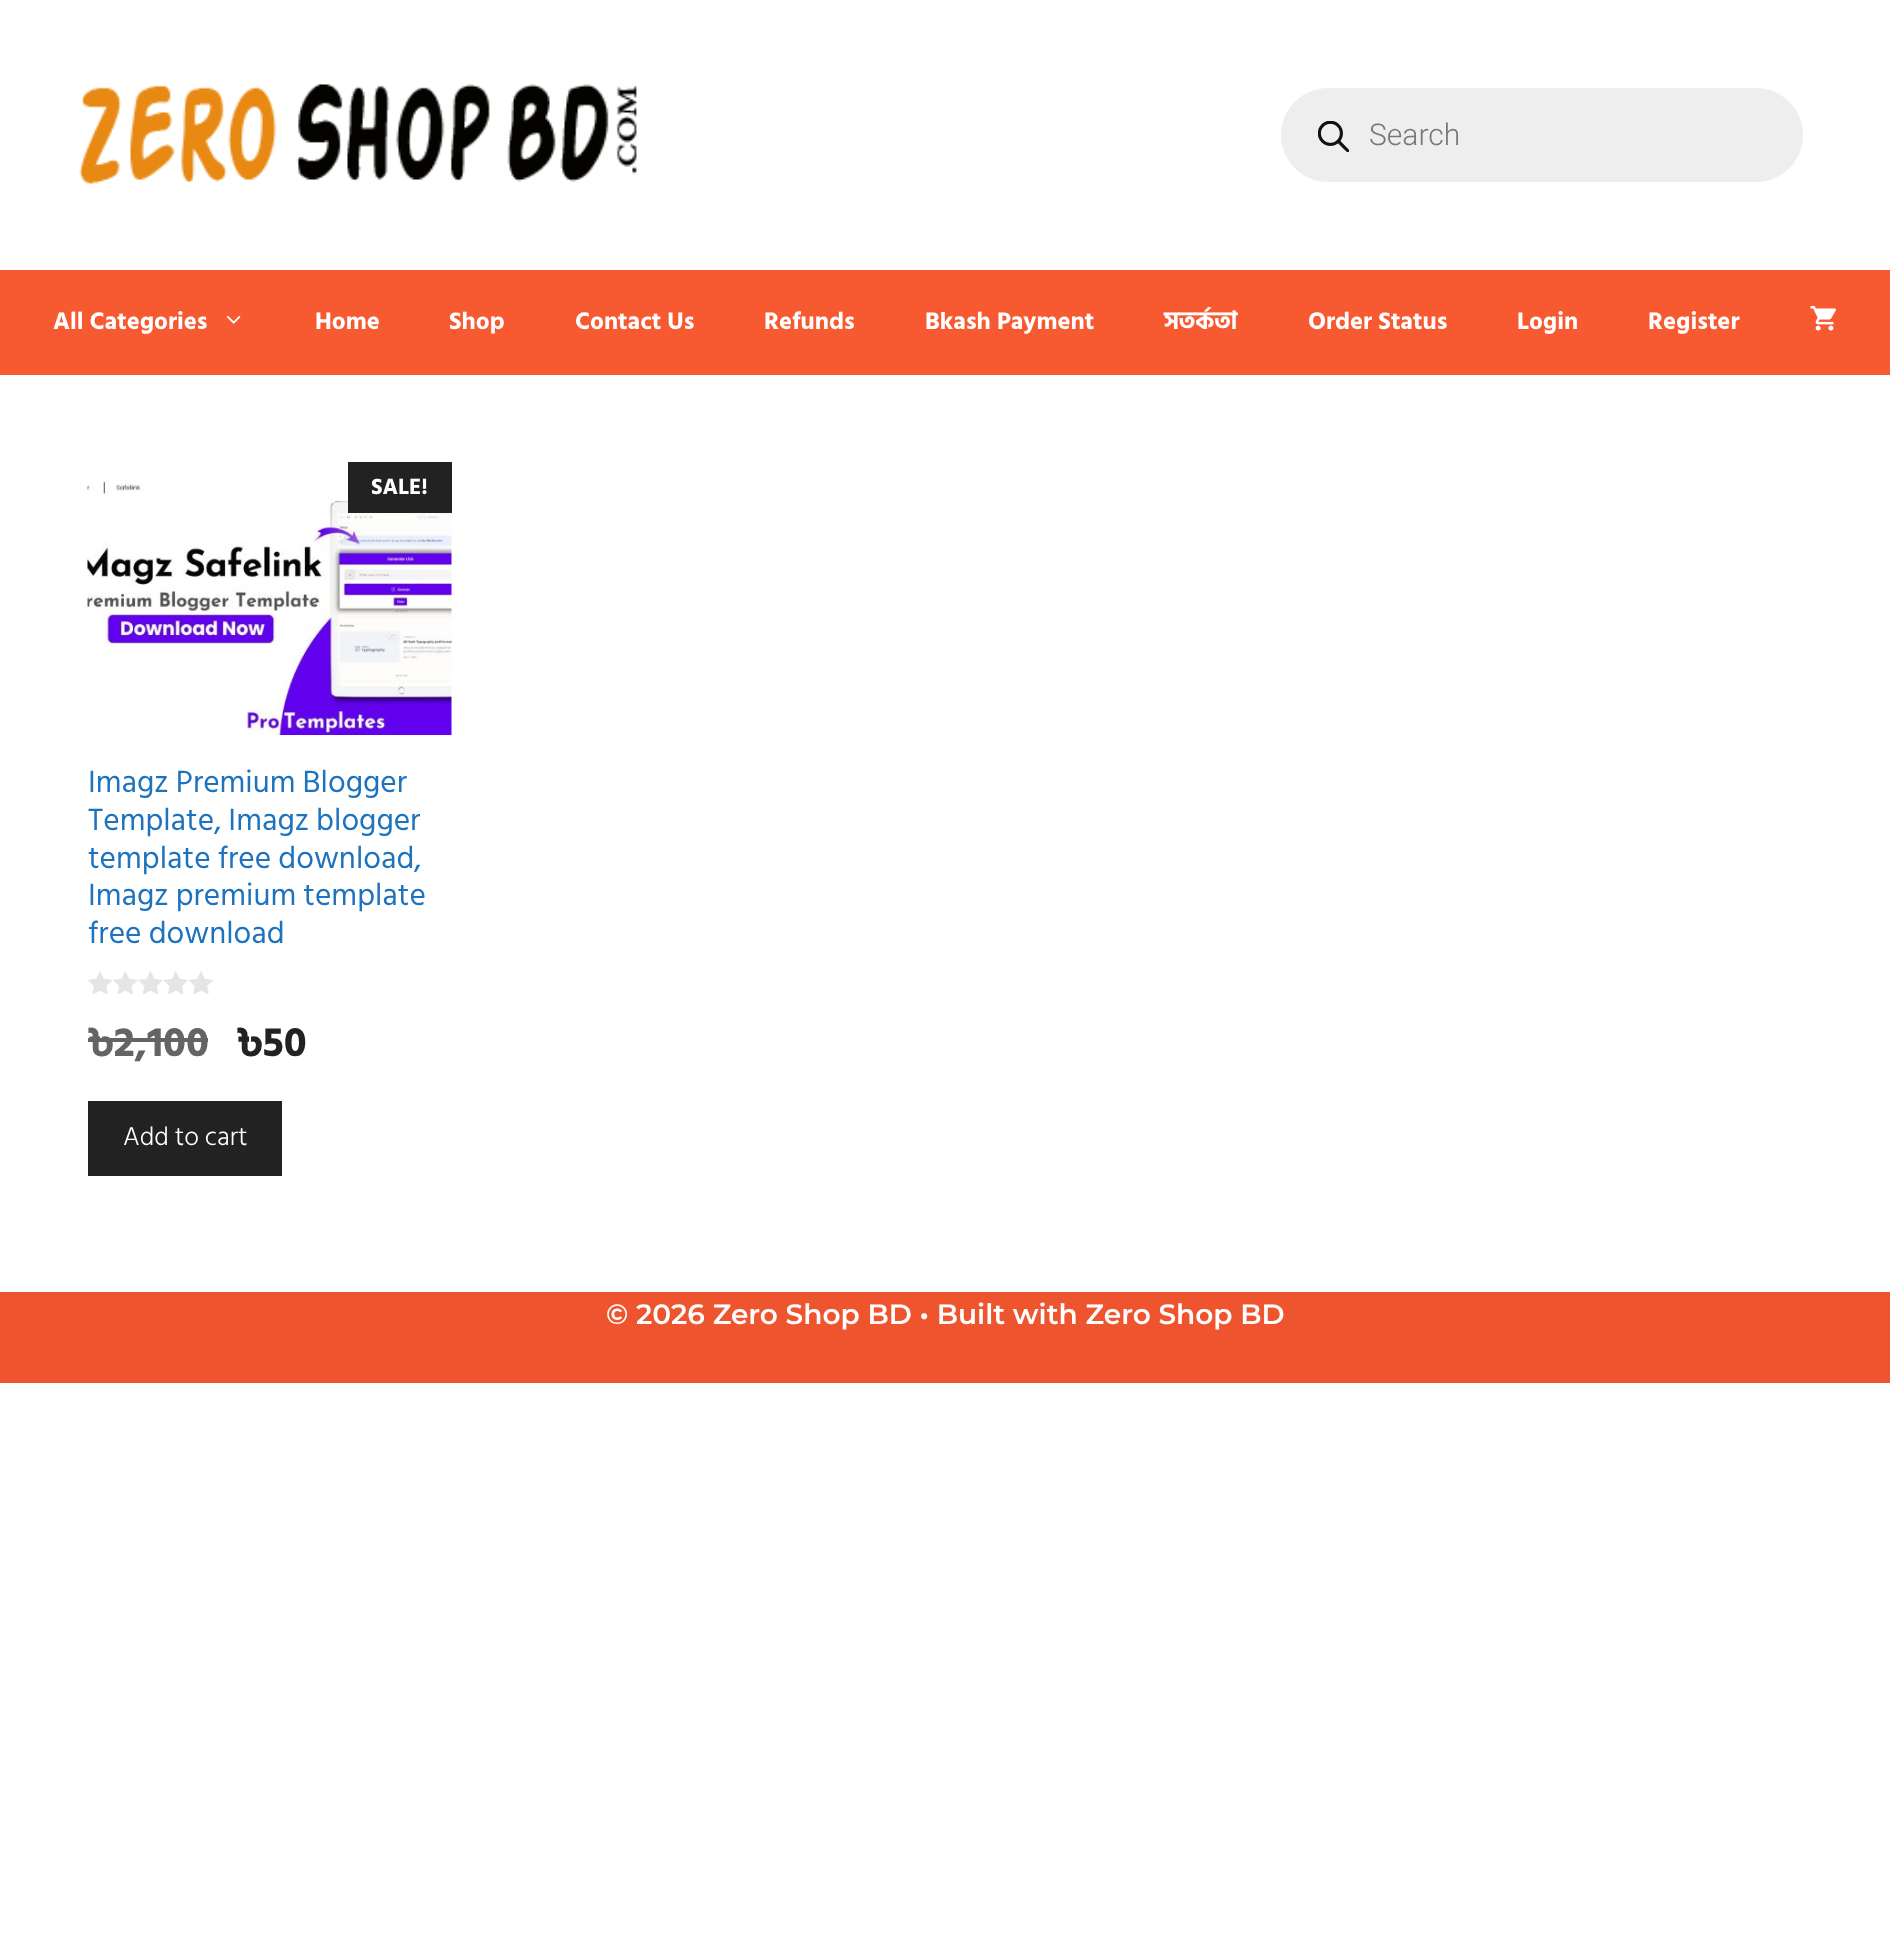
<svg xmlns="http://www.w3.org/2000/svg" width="1890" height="1945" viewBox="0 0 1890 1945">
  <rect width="100%" height="100%" fill="#fff"/>
  <image x="79" y="84" width="558" height="100" href="img/1.png"/>
  <rect x="1281" y="88" width="522" height="94" rx="47" fill="#eee"/>
  <image x="1318" y="121" width="31" height="31" href="img/2.png"/>
  <path d="M0 270h1890v105H0z" fill="#f75931"/>
  <image x="226" y="315" width="15" height="9" href="img/3.png"/>
  <image x="1810" y="306" width="26" height="25" href="img/4.png"/>
  <image x="87" y="478" width="365" height="257" href="img/5.png"/>
  <path d="M348 462h104v51H348z" fill="#222"/>
  <image x="88" y="971" width="125" height="23" href="img/6.png"/>
  <path d="M88 1038h120v4H88z" fill="#646464"/>
  <path d="M88 1101h194v75H88z" fill="#222"/>
  <path d="M0 1292h1890v91H0z" fill="#ee542e"/>
  <text x="1369" y="145" font-family="Roboto" font-size="30" font-weight="300" fill="#777">Search</text>
  <g font-family="Hind Siliguri" font-size="24.5" font-weight="bold" fill="#fff">
    <text x="53" y="329">All Categories</text>
    <text x="315" y="329">Home</text>
    <text x="449" y="329">Shop</text>
    <text x="575" y="329">Contact Us</text>
    <text x="764" y="329">Refunds</text>
    <text x="925" y="329">Bkash Payment</text>
    <text x="1164" y="329">সতর্কতা</text>
    <text x="1308" y="329">Order Status</text>
    <text x="1517" y="329">Login</text>
    <text x="1648" y="329">Register</text>
  </g>
  <text x="371" y="494" font-family="Hind Siliguri" font-size="22.5" font-weight="bold" fill="#fff">SALE!</text>
  <g font-family="Hind Siliguri" font-size="31.5" fill="#1e73be">
    <text x="88" y="792">Imagz Premium Blogger</text>
    <text x="88" y="830">Template, Imagz blogger</text>
    <text x="88" y="868">template free download,</text>
    <text x="88" y="905">Imagz premium template</text>
    <text x="88" y="943">free download</text>
  </g>
  <text x="88" y="1056" font-family="Hind Siliguri" font-size="42" font-weight="bold" fill="#646464">৳2,100</text>
  <text x="237" y="1056" font-family="Hind Siliguri" font-size="42" font-weight="bold" fill="#222">৳50</text>
  <text x="123" y="1145" font-family="Hind Siliguri" font-size="26.25" font-weight="300" fill="#fff">Add to cart</text>
  <text x="606" y="1324" font-family="Montserrat" font-size="28" font-weight="600" fill="#fff">© 2026 Zero Shop BD • Built with Zero Shop BD</text>
</svg>
